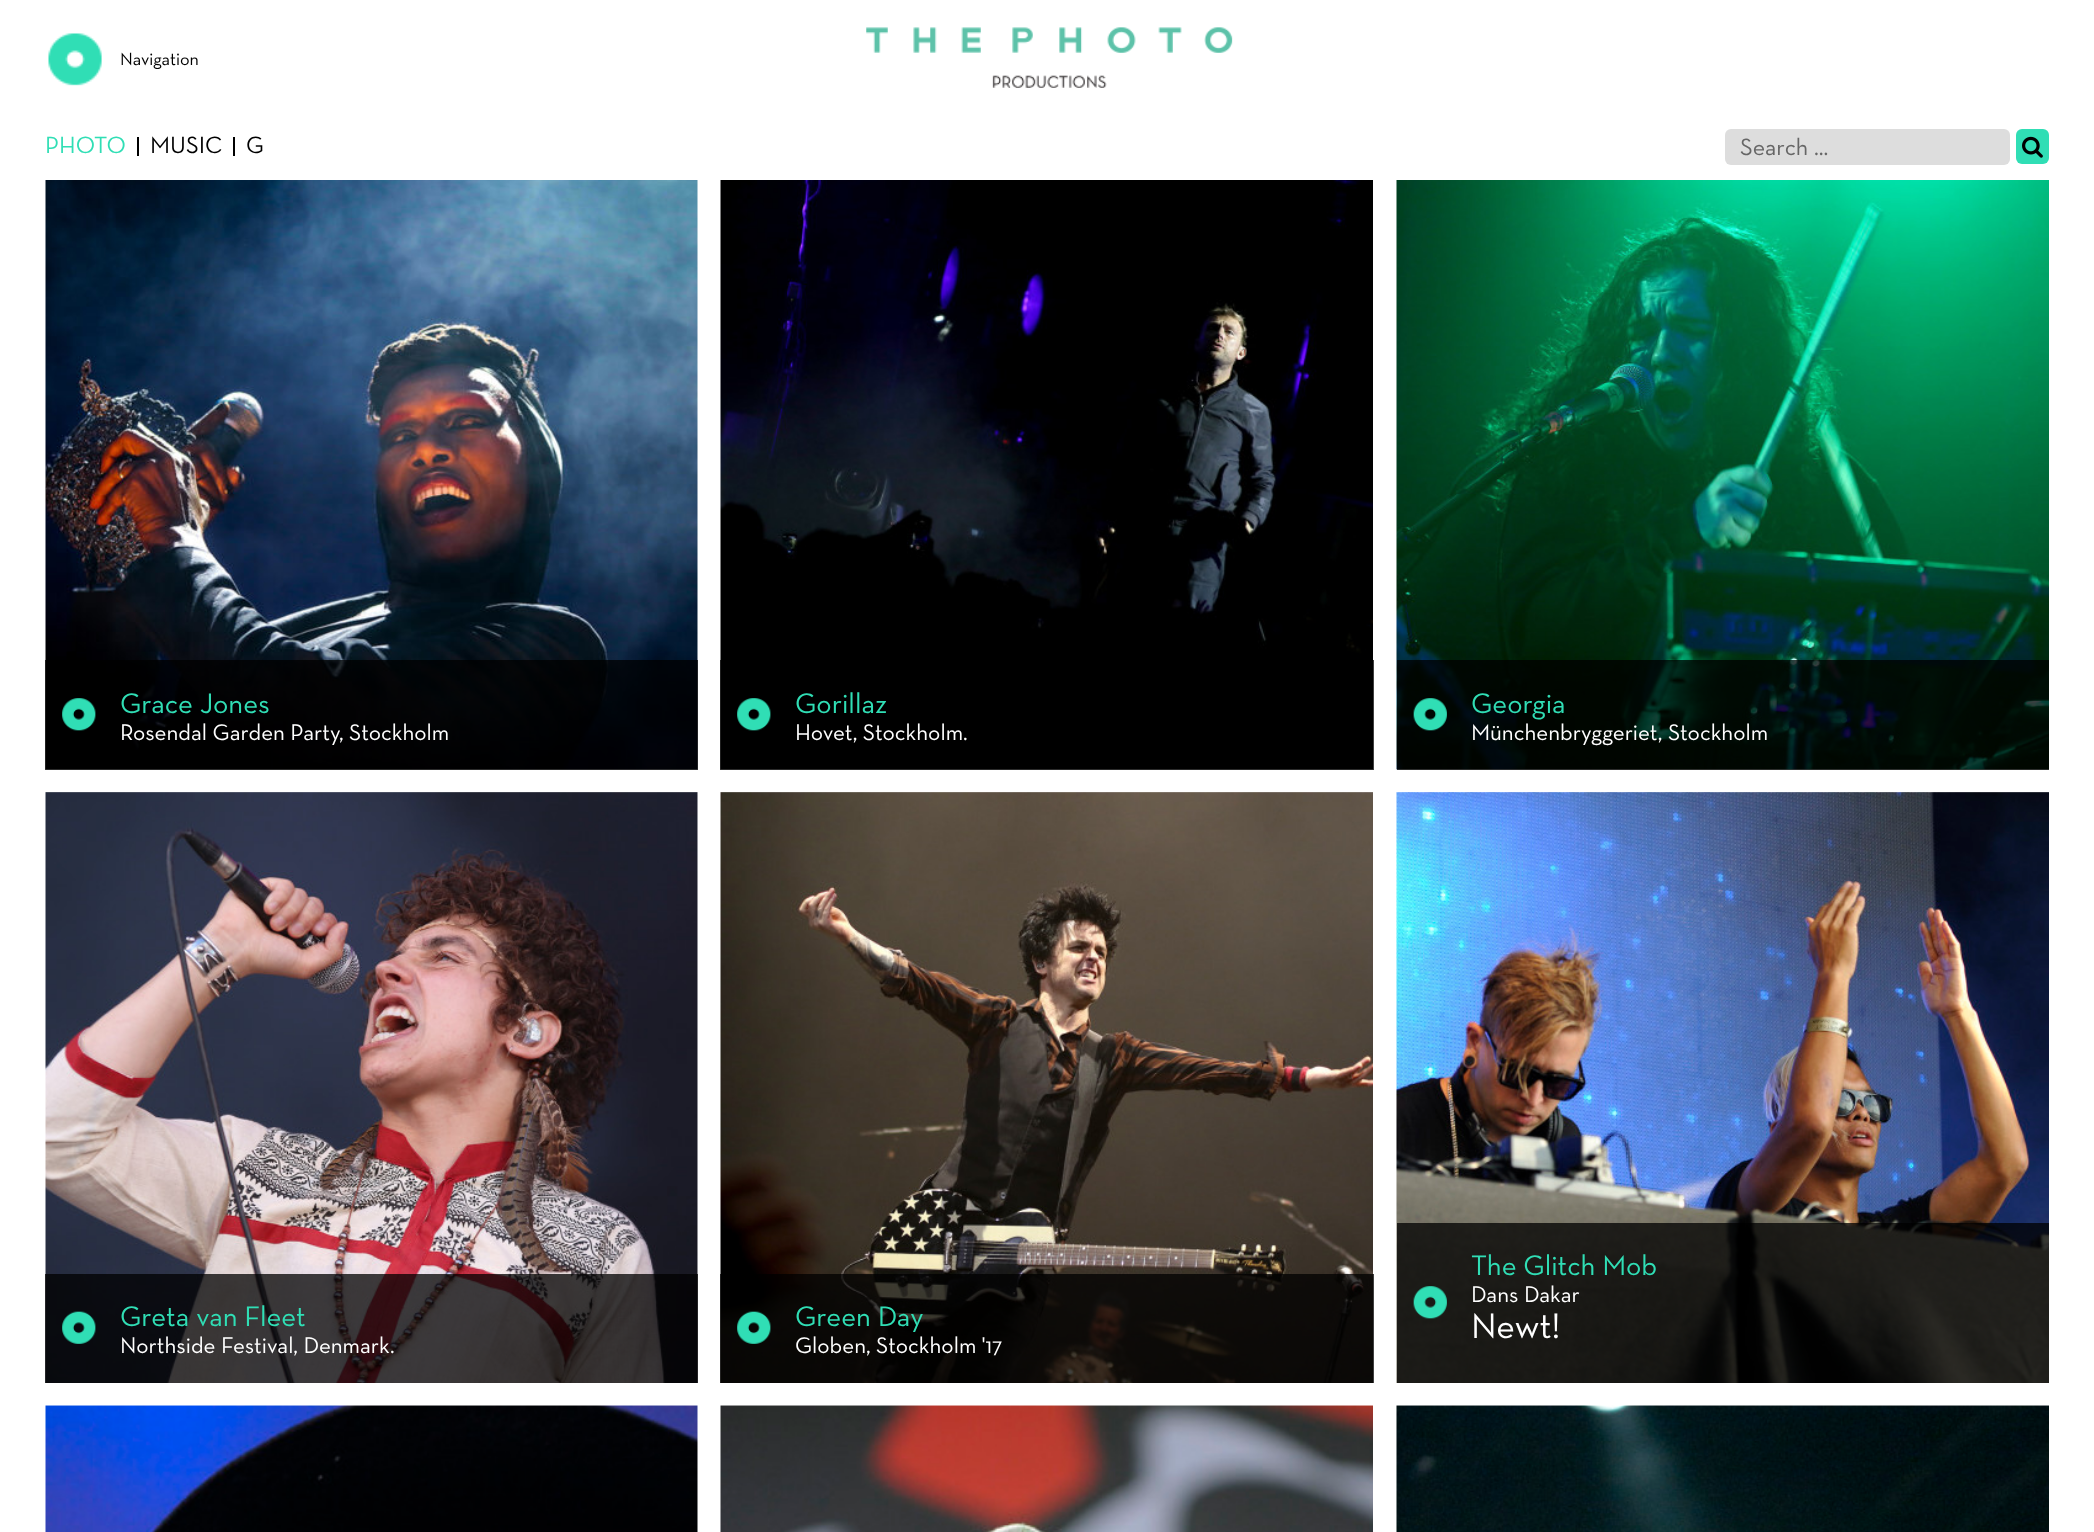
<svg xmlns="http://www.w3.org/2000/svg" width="2094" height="1532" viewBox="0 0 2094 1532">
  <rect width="100%" height="100%" fill="#fff"/>
  <image x="48" y="33" width="54" height="53" href="img/1.png"/>
  <image x="866" y="27" width="367" height="61" href="img/2.png"/>
  <path d="M137 137h2v19H137z" fill="#000"/>
  <path d="M233 137h2v19H233z" fill="#000"/>
  <rect x="1725" y="129" width="285" height="36" rx="6" fill="#ddd"/>
  <rect x="2016" y="129" width="33" height="35" rx="6" fill="#30deb5"/>
  <image x="2022" y="136" width="21" height="22" href="img/3.png"/>
  <image x="45" y="180" width="653" height="590" href="img/4.png"/>
  <path d="M45 660h653v110H45z" fill="#000000bf"/>
  <image x="62" y="698" width="34" height="33" href="img/5.png"/>
  <image x="45" y="792" width="653" height="591" href="img/6.png"/>
  <path d="M45 1274h653v109H45z" fill="#000000bf"/>
  <image x="62" y="1311" width="34" height="33" href="img/7.png"/>
  <image x="720" y="180" width="653" height="590" href="img/8.png"/>
  <path d="M720 660h654v110H720z" fill="#000000bf"/>
  <image x="737" y="698" width="34" height="33" href="img/9.png"/>
  <image x="720" y="792" width="653" height="591" href="img/10.png"/>
  <path d="M720 1274h654v109H720z" fill="#000000bf"/>
  <image x="737" y="1311" width="34" height="33" href="img/11.png"/>
  <image x="1396" y="180" width="653" height="590" href="img/12.png"/>
  <path d="M1397 660h652v110H1397z" fill="#000000bf"/>
  <image x="1413" y="698" width="34" height="33" href="img/13.png"/>
  <image x="1396" y="792" width="653" height="591" href="img/14.png"/>
  <path d="M1397 1223h652v160H1397z" fill="#000000bf"/>
  <image x="1413" y="1286" width="34" height="33" href="img/15.png"/>
  <image x="45" y="1405" width="653" height="127" href="img/16.png"/>
  <image x="720" y="1405" width="653" height="127" href="img/17.png"/>
  <image x="1396" y="1405" width="653" height="127" href="img/18.png"/>
  <text x="120" y="65" font-family="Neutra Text" font-size="18" fill="#000">Navigation</text>
  <text x="45" y="153" font-family="Neutra Text" font-size="24" fill="#30deb5">PHOTO</text>
  <g font-family="Neutra Text" font-size="24" fill="#000">
    <text x="150" y="153">MUSIC</text>
    <text x="246" y="153">G</text>
  </g>
  <text x="1740" y="155" font-family="Neutra Text" font-size="24" fill="#666">Search ...</text>
  <text x="120" y="713" font-family="Neutra Text" font-size="28.75" fill="#30deb5">Grace Jones</text>
  <text x="120" y="740" font-family="Neutra Text" font-size="23" fill="#fff">Rosendal Garden Party, Stockholm</text>
  <text x="120" y="1326" font-family="Neutra Text" font-size="28.75" fill="#30deb5">Greta van Fleet</text>
  <text x="120" y="1353" font-family="Neutra Text" font-size="23" fill="#fff">Northside Festival, Denmark.</text>
  <text x="795" y="713" font-family="Neutra Text" font-size="28.75" fill="#30deb5">Gorillaz</text>
  <text x="795" y="740" font-family="Neutra Text" font-size="23" fill="#fff">Hovet, Stockholm.</text>
  <text x="795" y="1326" font-family="Neutra Text" font-size="28.75" fill="#30deb5">Green Day</text>
  <text x="795" y="1353" font-family="Neutra Text" font-size="23" fill="#fff">Globen, Stockholm '17</text>
  <text x="1471" y="713" font-family="Neutra Text" font-size="28.75" fill="#30deb5">Georgia</text>
  <text x="1471" y="740" font-family="Neutra Text" font-size="23" fill="#fff">Münchenbryggeriet, Stockholm</text>
  <text x="1471" y="1275" font-family="Neutra Text" font-size="28.75" fill="#30deb5">The Glitch Mob</text>
  <text x="1471" y="1302" font-family="Neutra Text" font-size="23" fill="#fff">Dans Dakar</text>
  <text x="1471" y="1338" font-family="Neutra Text" font-size="36" fill="#fff">Newt!</text>
</svg>
